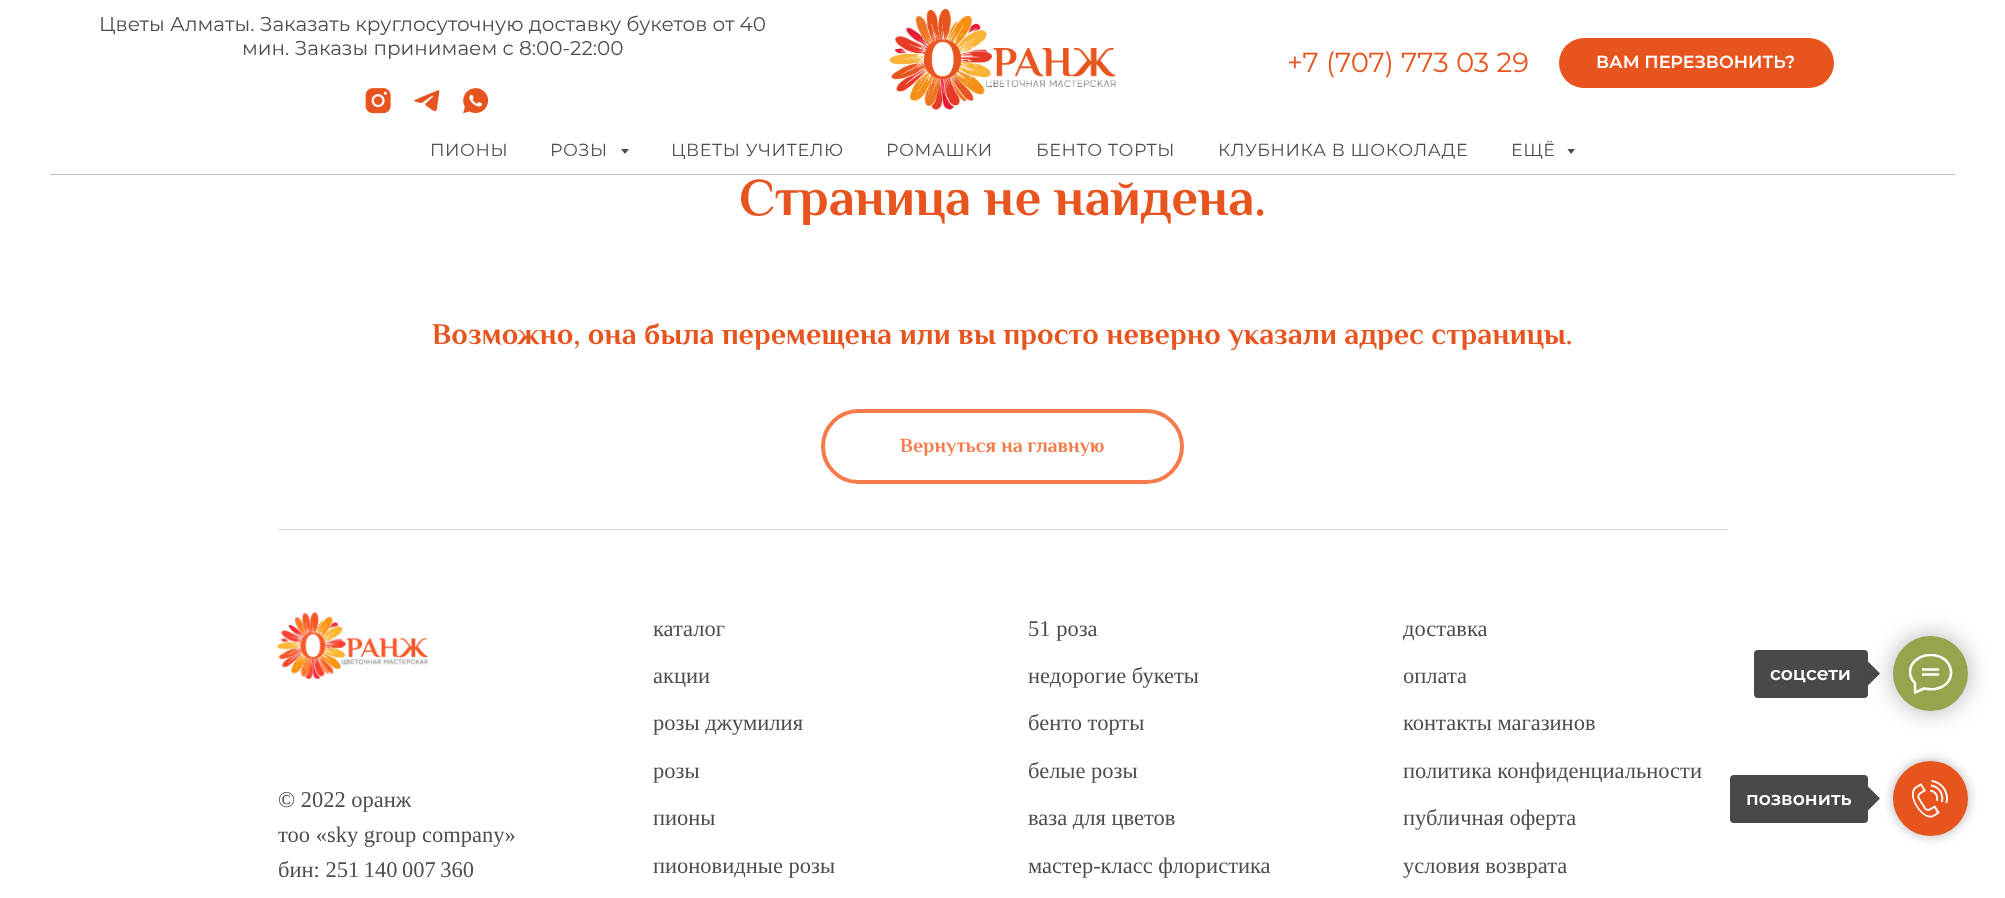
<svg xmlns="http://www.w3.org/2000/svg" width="2005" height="898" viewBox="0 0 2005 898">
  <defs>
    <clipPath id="clip1"><path d="M1909 654h44v40H1909z"/></clipPath>
  </defs>
  <rect width="100%" height="100%" fill="#fff"/>
  <image x="889" y="8" width="227" height="102" href="img/1.png"/>
  <image x="365" y="88" width="26" height="26" href="img/2.png"/>
  <image x="414" y="90" width="26" height="22" href="img/3.png"/>
  <image x="463" y="88" width="26" height="26" href="img/4.png"/>
  <rect x="1559" y="38" width="275" height="50" rx="25" fill="#e7541e"/>
  <path d="M621 149H629L625 154Z" fill="#4d4d4b"/>
  <path d="M1567.5 149H1575L1571 154Z" fill="#4d4d4b"/>
  <path d="M50 174h1905v1H50z" fill="#c2c2c2"/>
  <rect x="1754" y="650" width="114" height="48" rx="4" fill="#494949"/>
  <path d="M1867.5 686V661L1880 673.5Z" fill="#494949"/>
  <rect x="1893" y="636" width="75" height="75" rx="37.5" fill="#0000004d" filter="blur(12.5px)"/>
  <circle cx="1930.5" cy="673.5" r="37.5" fill="#96a44e"/>
  <g clip-path="url(#clip1)">
    <path d="M1923 669.5H1938M1923 674.5H1938M1915 683C1908 676.5 1908.5 666 1916 660C1920 656.5 1925.5 655 1930.5 655C1955 655 1959 685 1935 689C1930.5 690 1927.5 689 1924 688.5L1915 692.5Z" fill="none" stroke="#fff" stroke-width="2.5" stroke-linecap="round" stroke-linejoin="round"/>
  </g>
  <rect x="1730" y="775" width="138" height="48" rx="4" fill="#494949"/>
  <path d="M1867.5 811V786L1880 798.5Z" fill="#494949"/>
  <rect x="1893" y="761" width="75" height="75" rx="37.5" fill="#0000004d" filter="blur(6px)"/>
  <circle cx="1930.5" cy="798.5" r="37.5" fill="#e7541e"/>
  <image x="1911" y="780" width="37" height="38" href="img/5.png"/>
  <rect x="823" y="411" width="359" height="71" rx="35.5" fill="none" stroke="#f77b4a" stroke-width="4"/>
  <path d="M278 529h1450v1H278z" fill="#dbdbdb"/>
  <image x="277" y="612" width="151" height="67" href="img/6.png"/>
  <g font-family="Montserrat" font-size="20" fill="#4d4d4b">
    <text x="99" y="31">Цветы Алматы. Заказать круглосуточную доставку букетов от 40</text>
    <text x="242" y="55">мин. Заказы принимаем с 8:00-22:00</text>
  </g>
  <text x="1287" y="72" font-family="Montserrat" font-size="27.5" fill="#e7541e">+7 (707) 773 03 29</text>
  <text x="1596" y="68" font-family="Montserrat" font-size="17.5" font-weight="600" fill="#fff">ВАМ ПЕРЕЗВОНИТЬ?</text>
  <g font-family="Montserrat" font-size="17.5" letter-spacing="0.6" fill="#4d4d4b">
    <text x="430" y="156">ПИОНЫ</text>
    <text x="550" y="156">РОЗЫ</text>
    <text x="671" y="156">ЦВЕТЫ УЧИТЕЛЮ</text>
    <text x="886" y="156">РОМАШКИ</text>
    <text x="1036" y="156">БЕНТО ТОРТЫ</text>
    <text x="1218" y="156">КЛУБНИКА В ШОКОЛАДЕ</text>
    <text x="1511" y="156">ЕЩЁ</text>
  </g>
  <g font-family="Montserrat" font-size="18.75" font-weight="600" fill="#fff">
    <text x="1770" y="680">соцсети</text>
    <text x="1746" y="805">позвонить</text>
  </g>
  <text x="739" y="215" font-family="Philosopher" font-size="52.5" font-weight="bold" fill="#e7541e">Страница не найдена.</text>
  <text x="432" y="344" font-family="Philosopher" font-size="30" font-weight="bold" fill="#e7541e">Возможно, она была перемещена или вы просто неверно указали адрес страницы.</text>
  <text x="900" y="452" font-family="Philosopher" font-size="20" font-weight="bold" fill="#f77b4a">Вернуться на главную</text>
  <g font-family="Liberation Serif" font-size="22.5" fill="#4d4d4b">
    <text x="278" y="807">© 2022 оранж</text>
    <text x="278" y="842">тоо «sky group company»</text>
    <text x="278" y="877">бин: 251 140 007 360</text>
    <text x="653" y="636">каталог</text>
    <text x="653" y="683">акции</text>
    <text x="653" y="730">розы джумилия</text>
    <text x="653" y="778">розы</text>
    <text x="653" y="825">пионы</text>
    <text x="653" y="873">пионовидные розы</text>
    <text x="1028" y="636">51 роза</text>
    <text x="1028" y="683">недорогие букеты</text>
    <text x="1028" y="730">бенто торты</text>
    <text x="1028" y="778">белые розы</text>
    <text x="1028" y="825">ваза для цветов</text>
    <text x="1028" y="873">мастер-класс флористика</text>
    <text x="1403" y="636">доставка</text>
    <text x="1403" y="683">оплата</text>
    <text x="1403" y="730">контакты магазинов</text>
    <text x="1403" y="778">политика конфиденциальности</text>
    <text x="1403" y="825">публичная оферта</text>
    <text x="1403" y="873">условия возврата</text>
  </g>
</svg>
